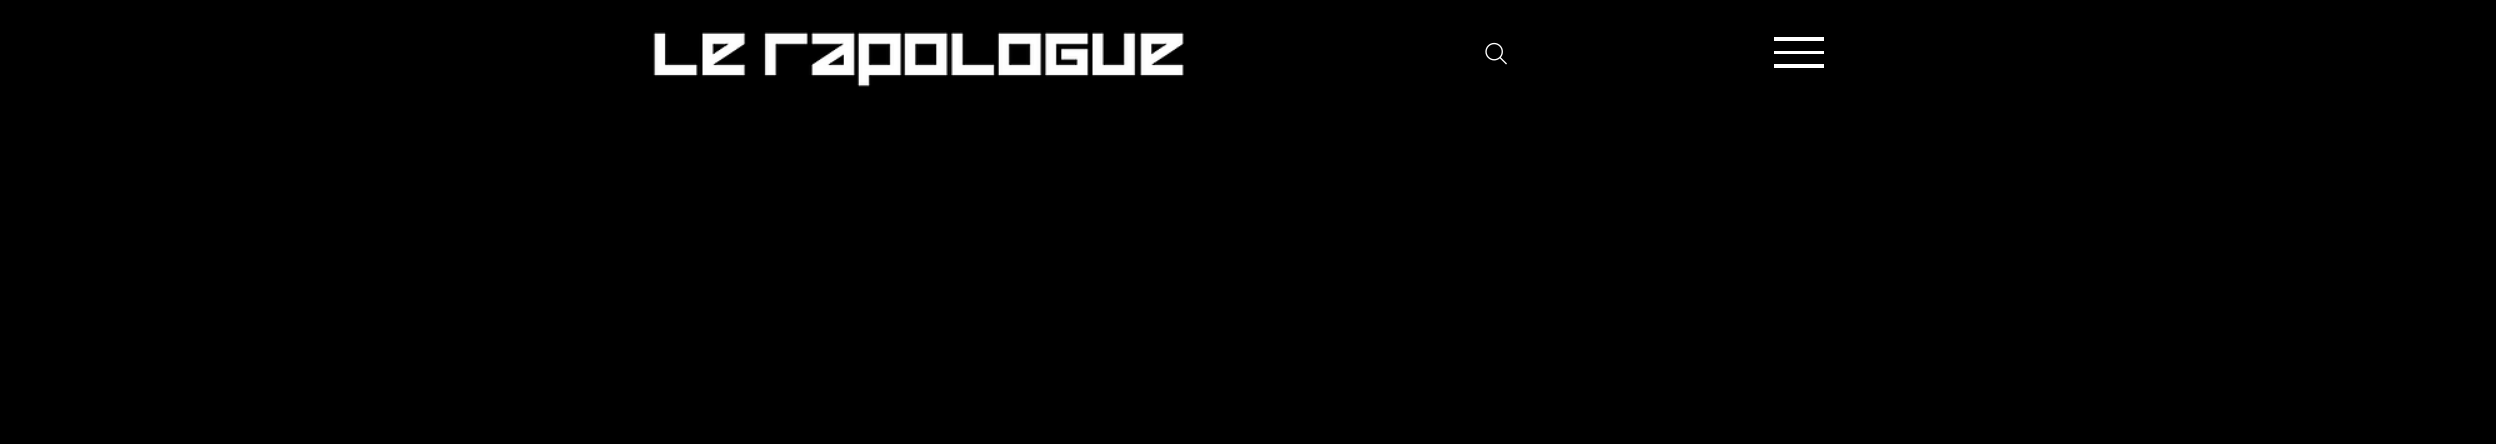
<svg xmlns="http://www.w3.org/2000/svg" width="2496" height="444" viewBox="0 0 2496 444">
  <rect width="100%" height="100%" fill="#000"/>
  <image x="653" y="30" width="531" height="57" href="img/1.png"/>
  <image x="1485" y="42" width="22" height="23" href="img/2.png"/>
  <path d="M1774 64h50v4H1774z" fill="#fff"/>
  <path d="M1774 37h50v4H1774z" fill="#fff"/>
  <path d="M1774 51h50v3H1774z" fill="#fff"/>
</svg>
